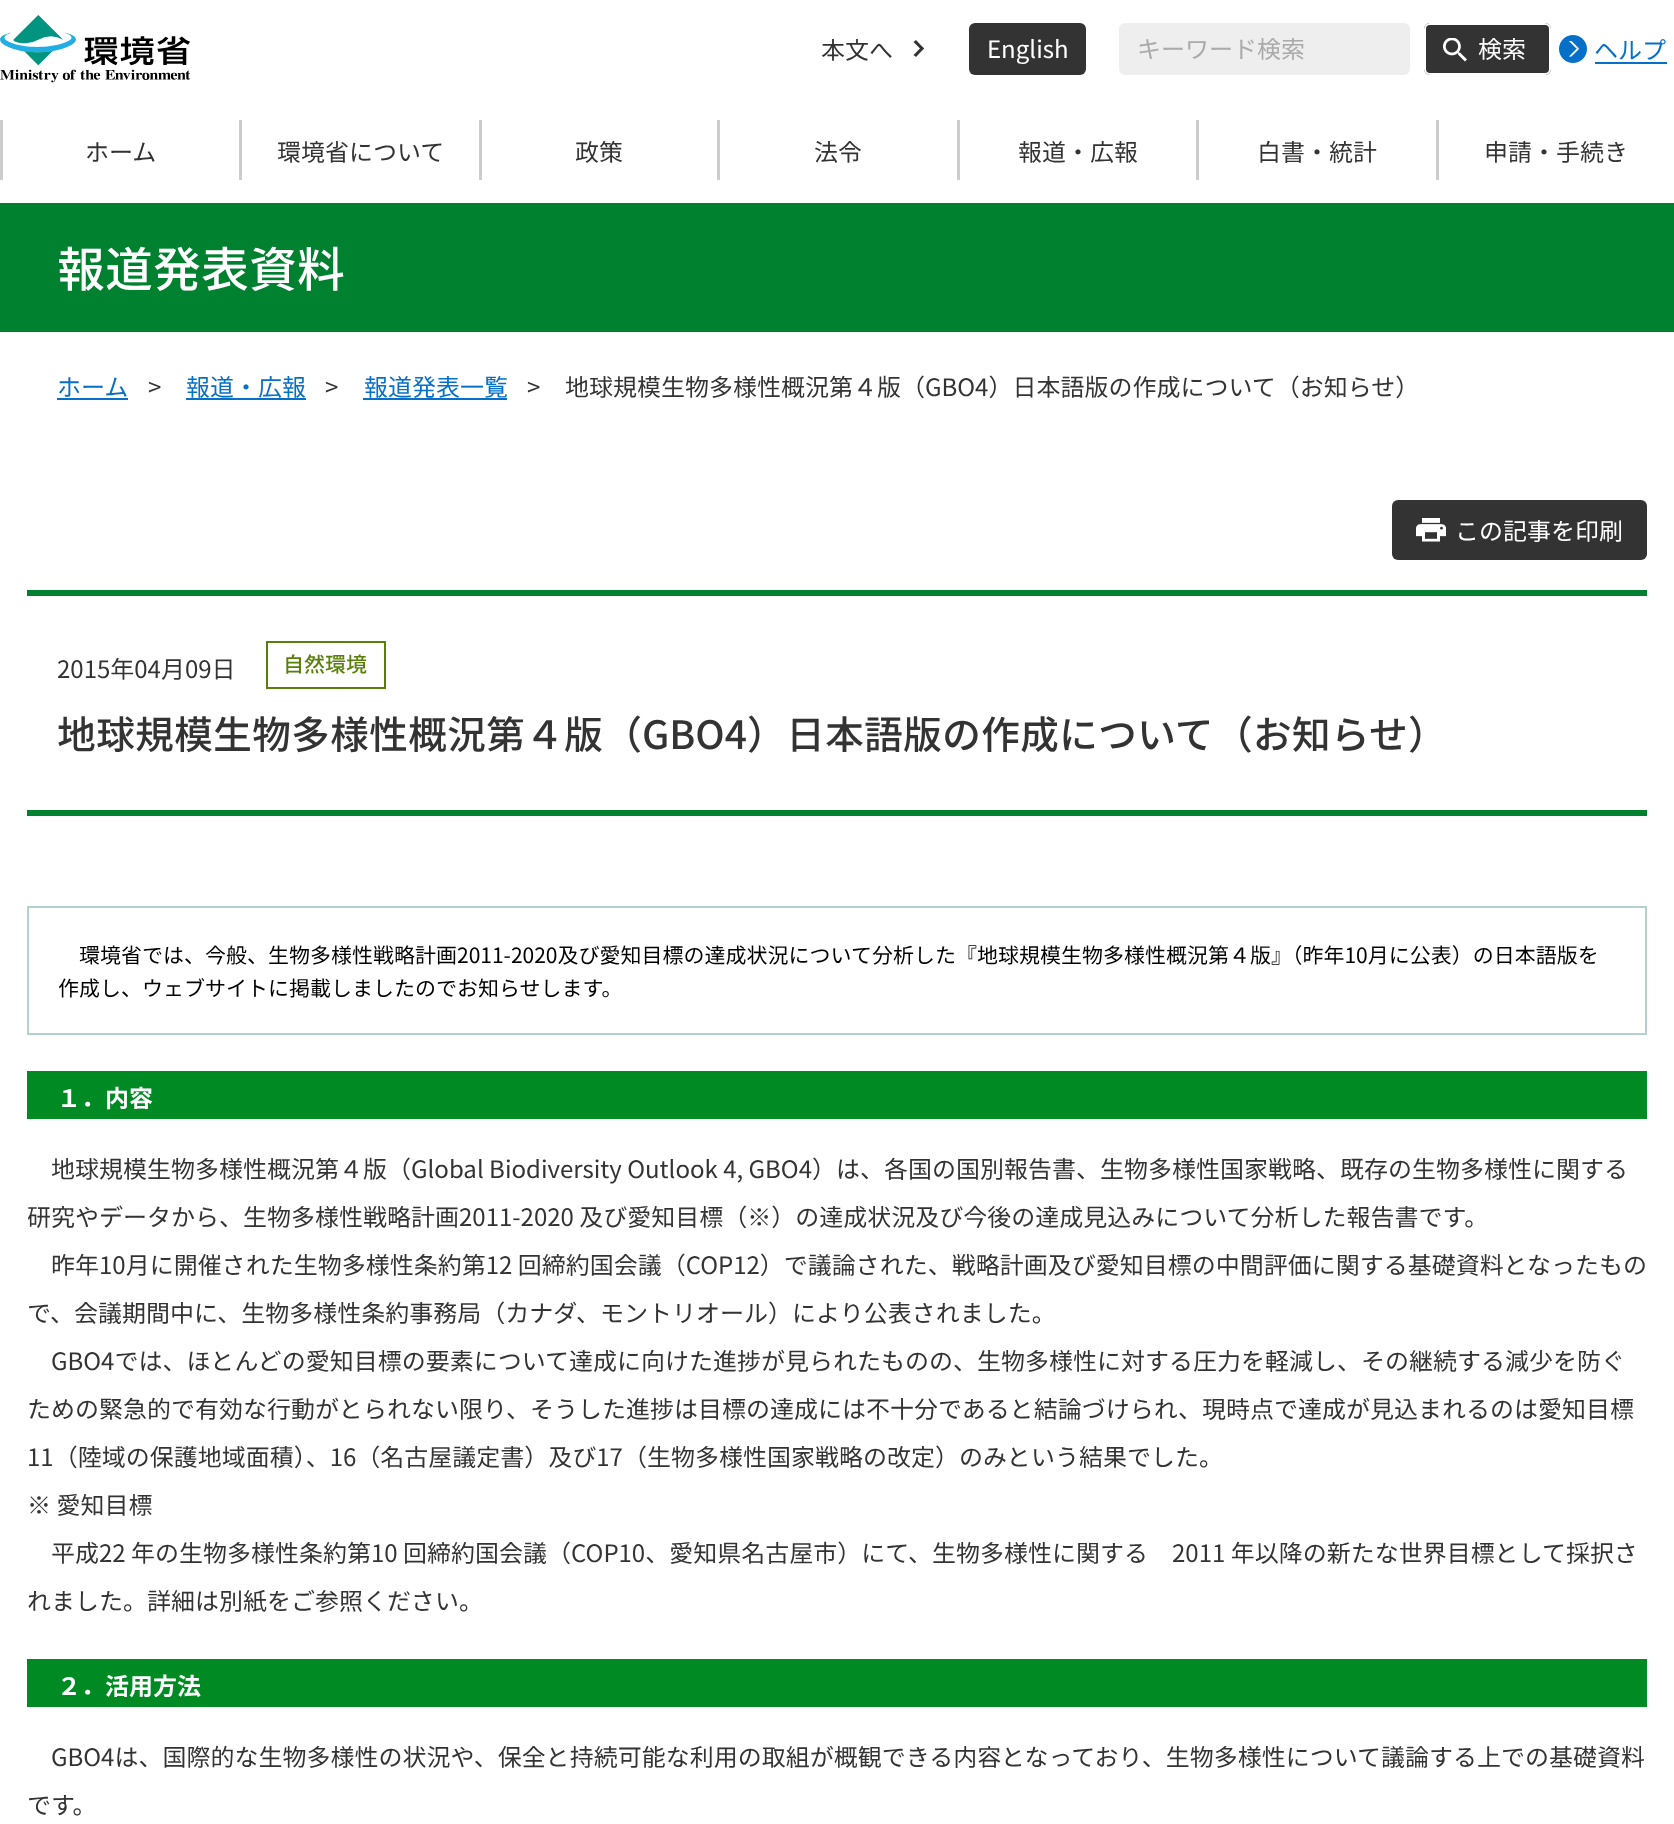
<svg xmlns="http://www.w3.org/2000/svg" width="1674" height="1824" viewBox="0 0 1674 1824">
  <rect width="100%" height="100%" fill="#fff"/>
  <image x="0" y="15" width="191" height="68" href="img/1.png"/>
  <path d="M916 40L924 48.5L922 50.5L913.5 42Z" fill="#333"/>
  <path d="M922 46.5L924 48.5L916 57L913.5 55Z" fill="#333"/>
  <rect x="969" y="23" width="117" height="52" rx="6" fill="#333"/>
  <rect x="1119" y="23" width="291" height="52" rx="6" fill="#eee"/>
  <rect x="1424" y="23" width="127" height="52" rx="6" fill="#333"/>
  <image x="1443" y="38" width="24" height="24" href="img/2.png"/>
  <rect x="1425" y="24" width="125" height="50" rx="5" fill="none" stroke="#fff" stroke-width="2"/>
  <image x="1559" y="35" width="28" height="28" href="img/3.png"/>
  <path d="M1595 62h72v2H1595z" fill="#066fc7"/>
  <path d="M0 120h3v60H0z" fill="#ccc"/>
  <path d="M239 120h3v60H239z" fill="#ccc"/>
  <path d="M479 120h3v60H479z" fill="#ccc"/>
  <path d="M717 120h3v60H717z" fill="#ccc"/>
  <path d="M957 120h3v60H957z" fill="#ccc"/>
  <path d="M1196 120h3v60H1196z" fill="#ccc"/>
  <path d="M1436 120h3v60H1436z" fill="#ccc"/>
  <path d="M0 203h1674v129H0z" fill="#008130"/>
  <path d="M57 398h71v2H57z" fill="#066fc7"/>
  <path d="M186 398h120v2H186z" fill="#066fc7"/>
  <path d="M363 398h144v2H363z" fill="#066fc7"/>
  <rect x="1392" y="500" width="255" height="60" rx="6" fill="#333"/>
  <image x="1416" y="518" width="30" height="24" href="img/4.png"/>
  <path d="M27 590h1620v6H27z" fill="#008130"/>
  <path d="M27 810h1620v6H27z" fill="#008130"/>
  <path d="M267 642h118v46H267z" fill="none" stroke="#59800a" stroke-width="2"/>
  <path d="M28 907h1618v127H28z" fill="none" stroke="#b1d2ce" stroke-width="2"/>
  <path d="M27 1071h1620v48H27z" fill="#008a23"/>
  <path d="M27 1659h1620v48H27z" fill="#008a23"/>
  <text x="821" y="59" font-family="Noto Sans CJK JP" font-size="24" fill="#333">本文へ</text>
  <text x="987" y="58" font-family="Noto Sans CJK JP" font-size="24" fill="#fff">English</text>
  <text x="1137" y="58" font-family="Noto Sans CJK JP" font-size="24" fill="#aaa">キーワード検索</text>
  <text x="1478" y="58" font-family="Noto Sans CJK JP" font-size="24" fill="#fff">検索</text>
  <text x="1594" y="59" font-family="Noto Sans CJK JP" font-size="24" fill="#066fc7">ヘルプ</text>
  <g font-family="Noto Sans CJK JP" font-size="24" fill="#333">
    <text x="85" y="161">ホーム</text>
    <text x="277" y="161">環境省について</text>
    <text x="575" y="161">政策</text>
    <text x="814" y="161">法令</text>
    <text x="1018" y="161">報道・広報</text>
    <text x="1257" y="161">白書・統計</text>
    <text x="1484" y="161">申請・手続き</text>
  </g>
  <text x="57" y="287" font-family="Noto Sans CJK JP" font-size="48" font-weight="500" fill="#fff">報道発表資料</text>
  <text x="57" y="396" font-family="Noto Sans CJK JP" font-size="24" fill="#066fc7">ホーム</text>
  <text x="148" y="396" font-family="Noto Sans CJK JP" font-size="24" fill="#333">&gt;</text>
  <text x="186" y="396" font-family="Noto Sans CJK JP" font-size="24" fill="#066fc7">報道・広報</text>
  <text x="325" y="396" font-family="Noto Sans CJK JP" font-size="24" fill="#333">&gt;</text>
  <text x="364" y="396" font-family="Noto Sans CJK JP" font-size="24" fill="#066fc7">報道発表一覧</text>
  <g font-family="Noto Sans CJK JP" font-size="24" fill="#333">
    <text x="527" y="396">&gt;</text>
    <text x="565" y="396">地球規模生物多様性概況第４版（GBO4）日本語版の作成について（お知らせ）</text>
  </g>
  <text x="1455" y="540" font-family="Noto Sans CJK JP" font-size="24" fill="#fff">この記事を印刷</text>
  <text x="57" y="678" font-family="Noto Sans CJK JP" font-size="24" fill="#333">2015年04月09日</text>
  <text x="283" y="672" font-family="Noto Sans CJK JP" font-size="21" font-weight="500" fill="#59800a">自然環境</text>
  <text x="57" y="749" font-family="Noto Sans CJK JP" font-size="39" font-weight="500" fill="#333">地球規模生物多様性概況第４版（GBO4）日本語版の作成について（お知らせ）</text>
  <g font-family="Noto Sans CJK JP" font-size="21" fill="#000">
    <text x="79" y="963">環境省では、今般、生物多様性戦略計画2011-2020及び愛知目標の達成状況について分析した『地球規模生物多様性概況第４版』（昨年10月に公表）の日本語版を</text>
    <text x="58" y="996">作成し、ウェブサイトに掲載しましたのでお知らせします。</text>
  </g>
  <text x="57" y="1107" font-family="Noto Sans CJK JP" font-size="24" font-weight="bold" fill="#fff">１．内容</text>
  <g font-family="Noto Sans CJK JP" font-size="24" fill="#333">
    <text x="51" y="1178">地球規模生物多様性概況第４版（Global Biodiversity Outlook 4, GBO4）は、各国の国別報告書、生物多様性国家戦略、既存の生物多様性に関する</text>
    <text x="27" y="1226">研究やデータから、生物多様性戦略計画2011-2020 及び愛知目標（※）の達成状況及び今後の達成見込みについて分析した報告書です。</text>
    <text x="51" y="1274">昨年10月に開催された生物多様性条約第12 回締約国会議（COP12）で議論された、戦略計画及び愛知目標の中間評価に関する基礎資料となったもの</text>
    <text x="27" y="1322">で、会議期間中に、生物多様性条約事務局（カナダ、モントリオール）により公表されました。</text>
    <text x="51" y="1370">GBO4では、ほとんどの愛知目標の要素について達成に向けた進捗が見られたものの、生物多様性に対する圧力を軽減し、その継続する減少を防ぐ</text>
    <text x="27" y="1418">ための緊急的で有効な行動がとられない限り、そうした進捗は目標の達成には不十分であると結論づけられ、現時点で達成が見込まれるのは愛知目標</text>
    <text x="27" y="1466">11（陸域の保護地域面積）、16（名古屋議定書）及び17（生物多様性国家戦略の改定）のみという結果でした。</text>
    <text x="27" y="1514">※ 愛知目標</text>
    <text x="51" y="1562">平成22 年の生物多様性条約第10 回締約国会議（COP10、愛知県名古屋市）にて、生物多様性に関する　2011 年以降の新たな世界目標として採択さ</text>
    <text x="27" y="1610">れました。詳細は別紙をご参照ください。</text>
  </g>
  <text x="57" y="1695" font-family="Noto Sans CJK JP" font-size="24" font-weight="bold" fill="#fff">２．活用方法</text>
  <g font-family="Noto Sans CJK JP" font-size="24" fill="#333">
    <text x="51" y="1766">GBO4は、国際的な生物多様性の状況や、保全と持続可能な利用の取組が概観できる内容となっており、生物多様性について議論する上での基礎資料</text>
    <text x="27" y="1814">です。</text>
  </g>
</svg>
